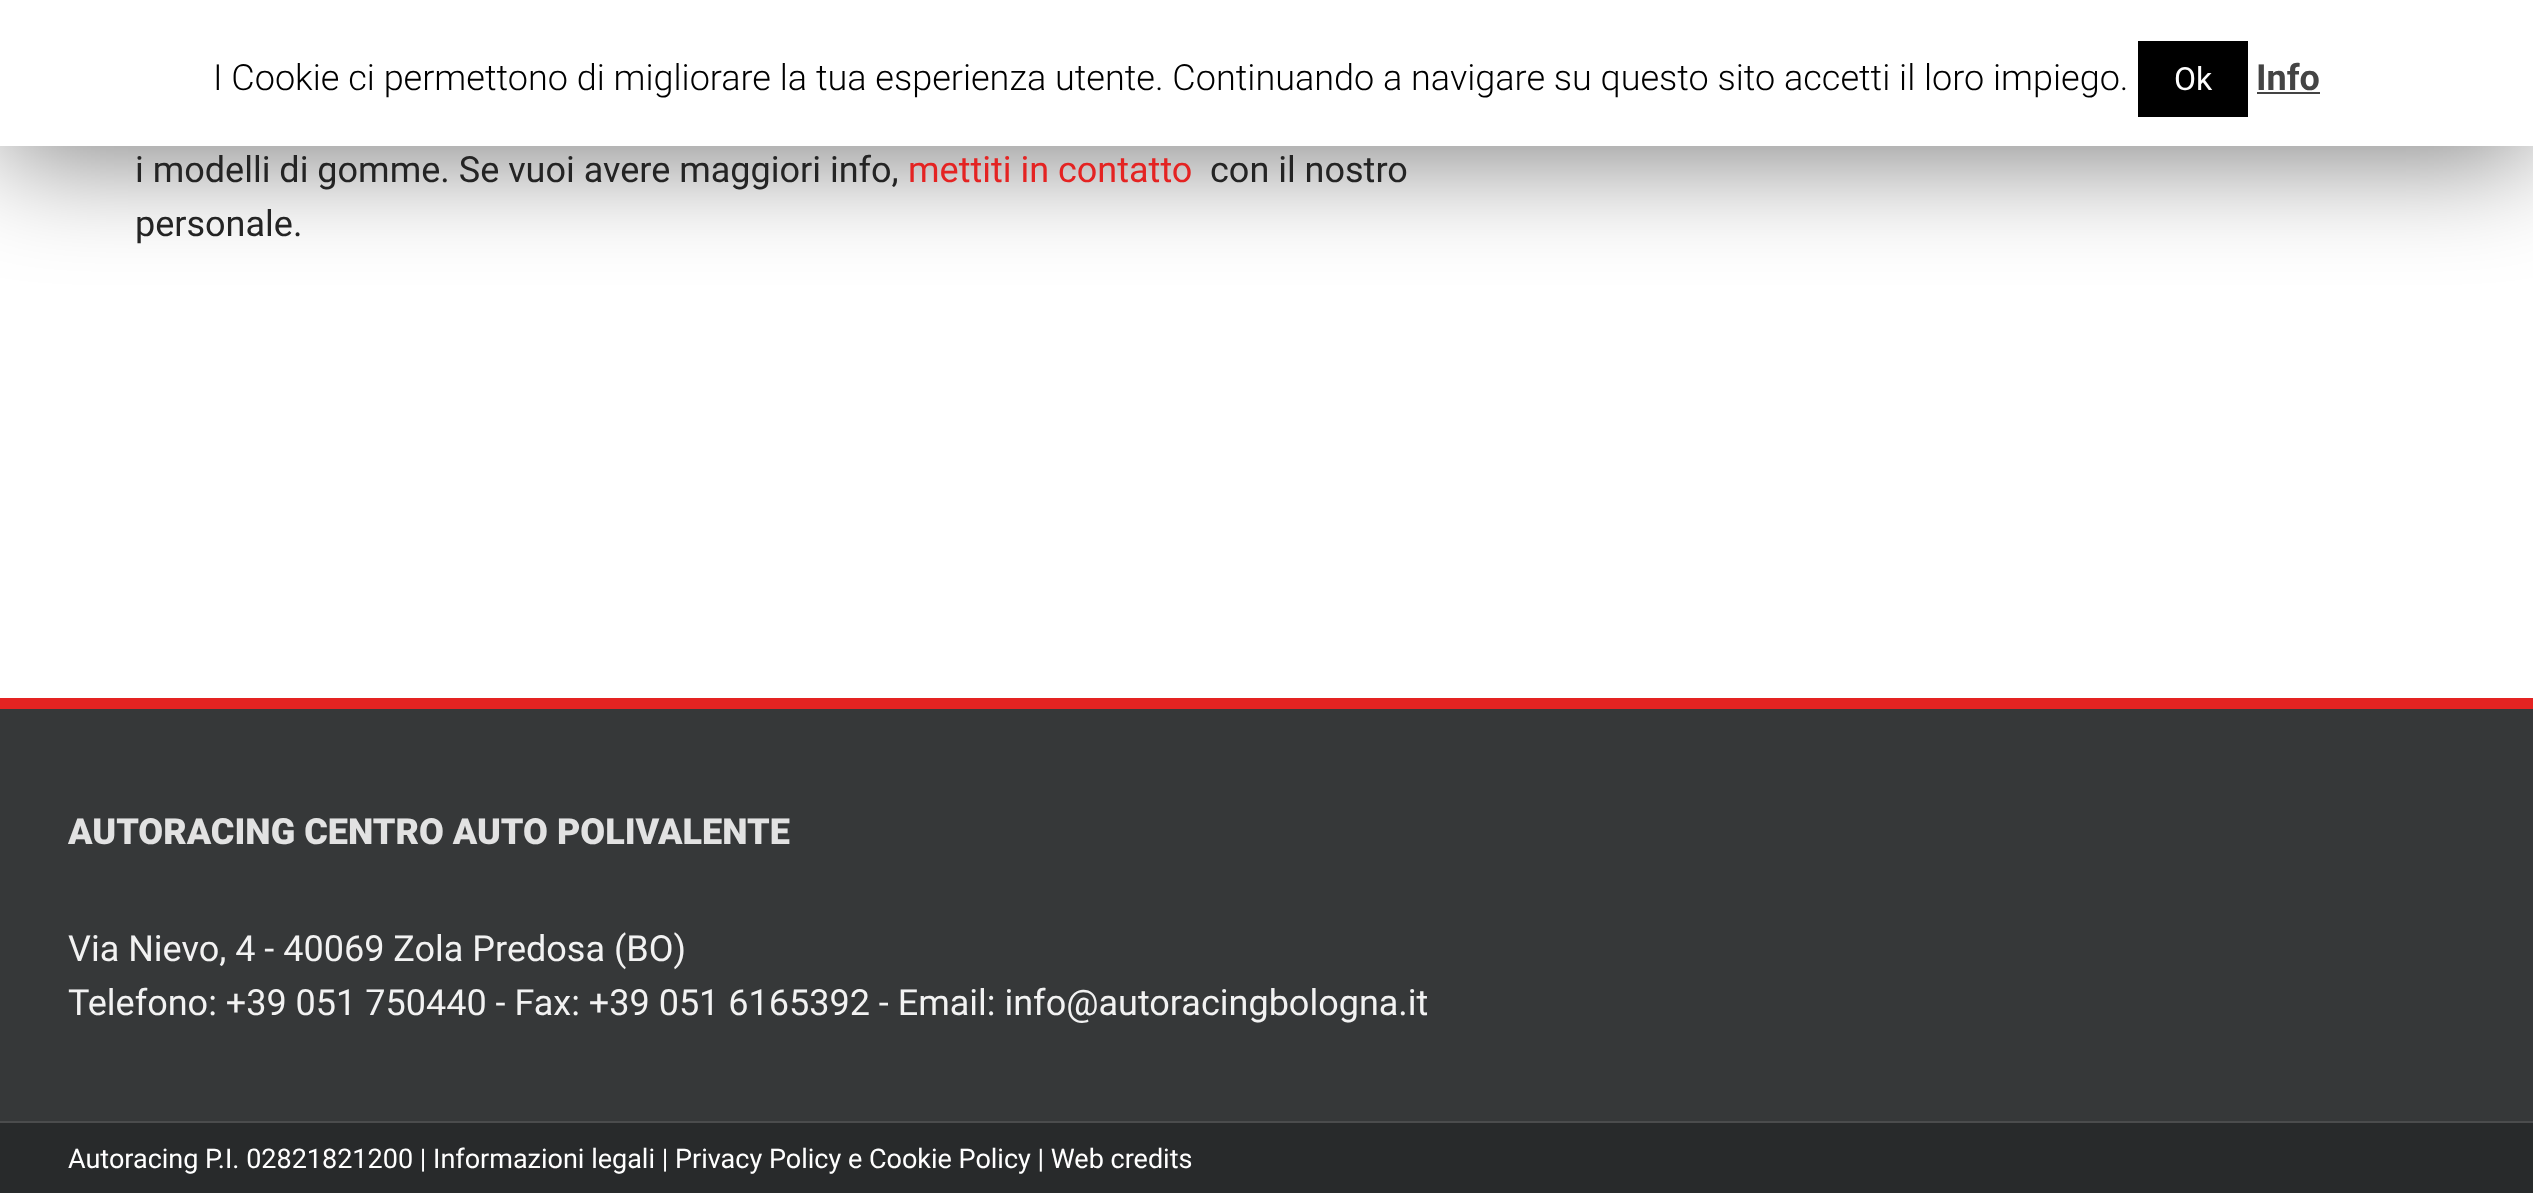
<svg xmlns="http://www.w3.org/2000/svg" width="2533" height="1193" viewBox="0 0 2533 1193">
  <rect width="100%" height="100%" fill="#fff"/>
  <path d="M0 11h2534v147H0z" fill="#00000080" filter="blur(56px)"/>
  <path d="M0 0h2533v146H0z" fill="#fff"/>
  <path d="M2138 41h110v76H2138z" fill="#000"/>
  <path d="M2257 92h63v2H2257z" fill="#444"/>
  <path d="M0 709h2533v412H0z" fill="#363839"/>
  <path d="M0 698h2533v11H0z" fill="#e42322"/>
  <path d="M0 1123h2533v70H0z" fill="#282a2b"/>
  <path d="M0 1121h2533v2H0z" fill="#4b4c4d"/>
  <text x="213" y="90" font-family="Roboto" font-size="36" font-weight="300" fill="#000">I Cookie ci permettono di migliorare la tua esperienza utente. Continuando a navigare su questo sito accetti il loro impiego.</text>
  <text x="2174" y="90" font-family="Roboto" font-size="32" fill="#fff">Ok</text>
  <text x="2256" y="90" font-family="Roboto" font-size="36" font-weight="bold" fill="#444">Info</text>
  <text x="135" y="182" font-family="Roboto" font-size="36" fill="#242424">i modelli di gomme. Se vuoi avere maggiori info,</text>
  <text x="908" y="182" font-family="Roboto" font-size="36" fill="#e42322">mettiti in contatto</text>
  <g font-family="Roboto" font-size="36" fill="#242424">
    <text x="1210" y="182">con il nostro</text>
    <text x="135" y="236">personale.</text>
  </g>
  <text x="68" y="844" font-family="Roboto" font-size="36" font-weight="900" fill="#e2e2e2">AUTORACING CENTRO AUTO POLIVALENTE</text>
  <g font-family="Roboto" font-size="36" fill="#f2f2f2">
    <text x="68" y="961">Via Nievo, 4 - 40069 Zola Predosa (BO)</text>
    <text x="68" y="1015">Telefono: +39 051 750440 - Fax: +39 051 6165392 - Email: info@autoracingbologna.it</text>
  </g>
  <text x="68" y="1168" font-family="Roboto" font-size="27" fill="#fff">Autoracing P.I. 02821821200 | Informazioni legali | Privacy Policy e Cookie Policy | Web credits</text>
</svg>
